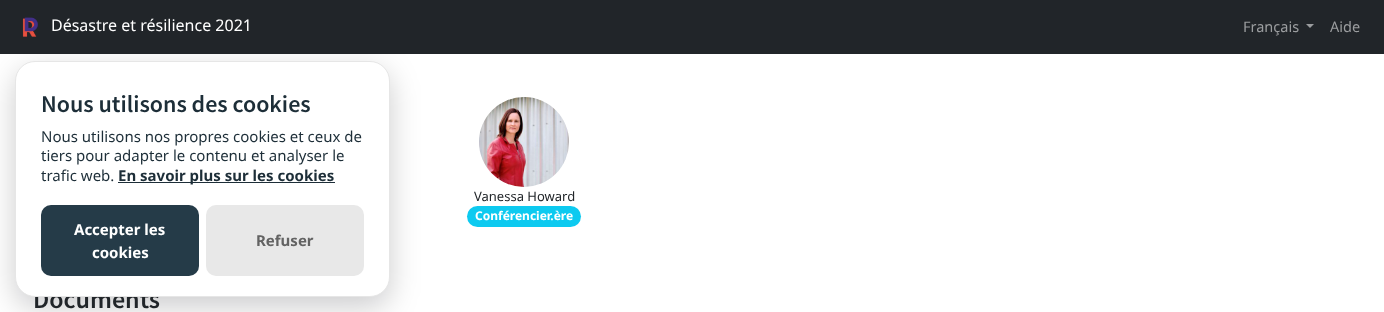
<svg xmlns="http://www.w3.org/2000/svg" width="1384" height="312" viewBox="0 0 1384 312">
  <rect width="100%" height="100%" fill="#fff"/>
  <rect x="15" y="71" width="375" height="236" rx="20" fill="#02020333" filter="blur(15px)"/>
  <path d="M0 0h1384v54H0z" fill="#212529"/>
  <image x="22" y="17" width="16" height="20" href="img/1.png"/>
  <path d="M1306 24H1314L1310 28Z" fill="#9b9d9f"/>
  <image x="479" y="97" width="90" height="90" href="img/2.png"/>
  <rect x="467" y="206" width="114" height="21" rx="10.5" fill="#0dcaf0"/>
  <text x="51" y="31" font-family="Noto Sans" font-size="16" fill="#fff">Désastre et résilience 2021</text>
  <g font-family="Noto Sans" font-size="14.5" fill="#9b9d9f">
    <text x="1243" y="32">Français</text>
    <text x="1330" y="32">Aide</text>
  </g>
  <text x="474" y="201" font-family="Noto Sans" font-size="13" fill="#212529">Vanessa Howard</text>
  <text x="475" y="220" font-family="Noto Sans" font-size="12" font-weight="bold" fill="#fff">Conférencier.ère</text>
  <text x="33" y="308" font-family="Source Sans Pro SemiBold" font-size="26" font-weight="600" fill="#212529">Documents</text>
  <rect x="15.5" y="61.5" width="374" height="235" rx="19.5" fill="#fff" stroke="#e6e6e6"/>
  <rect x="206" y="205" width="158" height="71" rx="10" fill="#e8e8e8"/>
  <text x="256" y="246" font-family="Noto Sans" font-size="15" font-weight="bold" fill="#636363">Refuser</text>
  <rect x="41" y="205" width="158" height="71" rx="10" fill="#253b48"/>
  <g font-family="Noto Sans" font-size="15" font-weight="bold" fill="#fff">
    <text x="92" y="258">cookies</text>
    <text x="74" y="235">Accepter les</text>
  </g>
  <path d="M118 182h217v1H118z" fill="#1d2e38"/>
  <text x="118" y="181" font-family="Noto Sans" font-size="15" font-weight="bold" fill="#1d2e38">En savoir plus sur les cookies</text>
  <g font-family="Noto Sans" font-size="15" fill="#1d2e38">
    <text x="41" y="181">trafic web.</text>
    <text x="41" y="161">tiers pour adapter le contenu et analyser le</text>
    <text x="41" y="142">Nous utilisons nos propres cookies et ceux de</text>
  </g>
  <text x="41" y="112" font-family="Source Sans Pro SemiBold" font-size="24" font-weight="600" fill="#1d2e38">Nous utilisons des cookies</text>
</svg>
